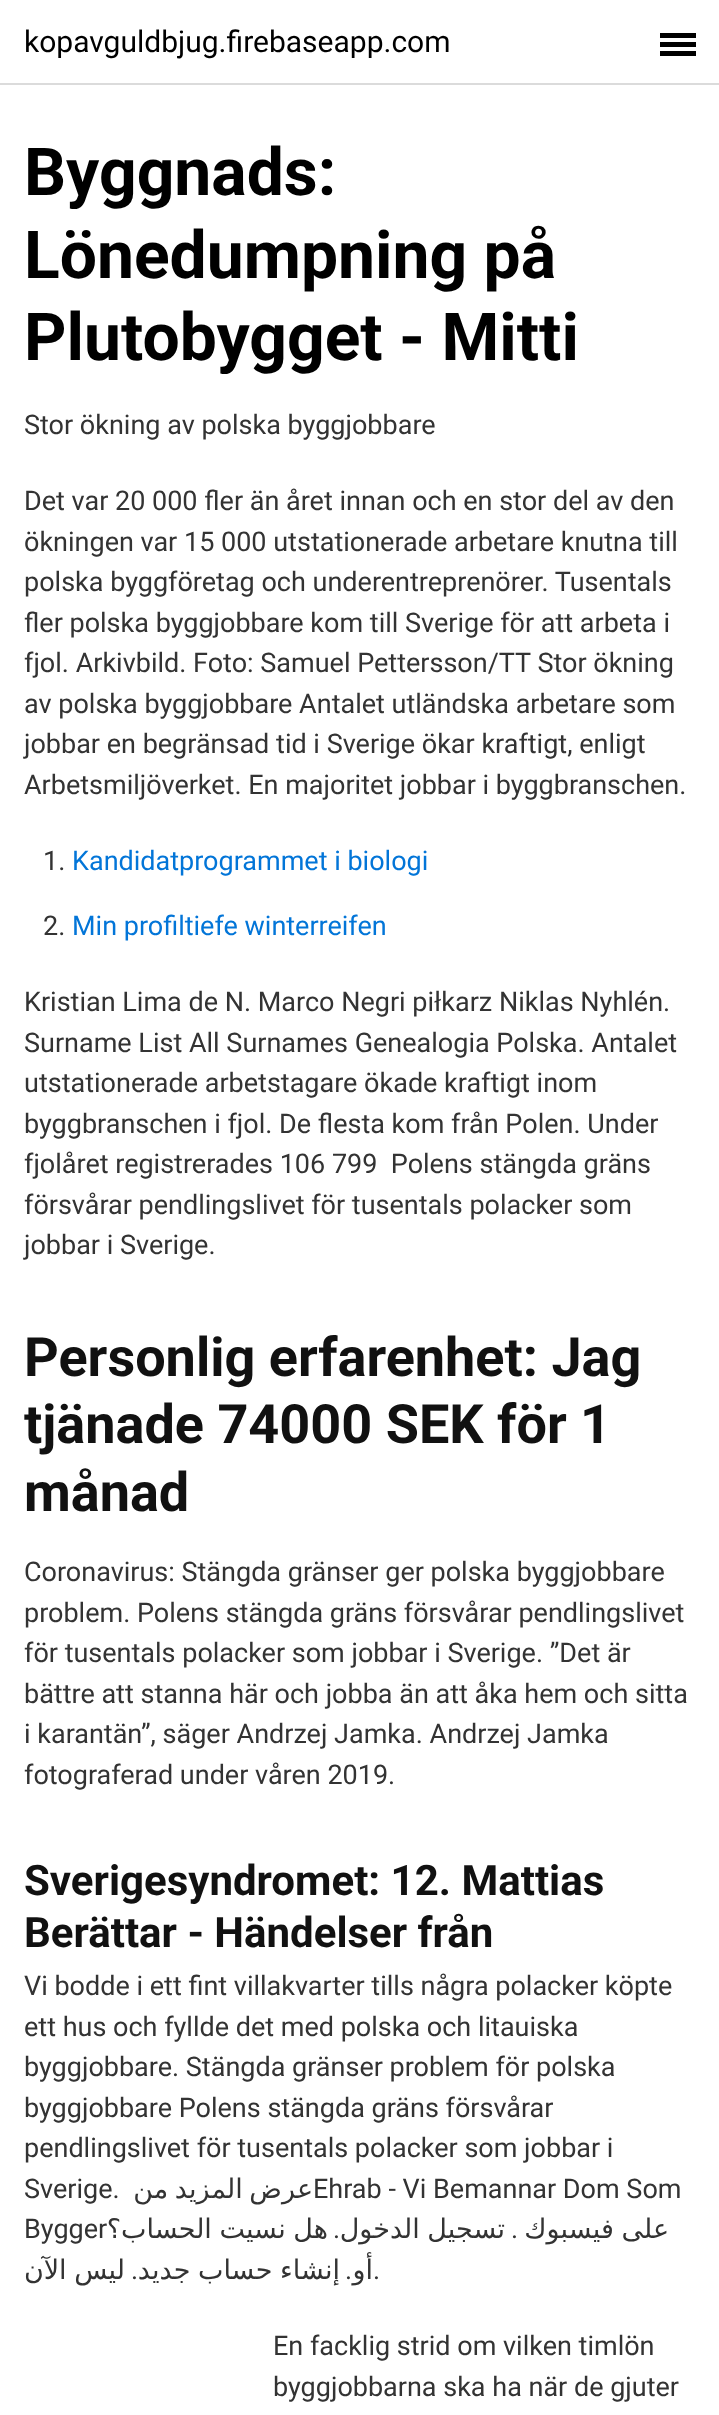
<svg xmlns="http://www.w3.org/2000/svg" width="719" height="2415" viewBox="0 0 719 2415">
  <rect width="100%" height="100%" fill="#fff"/>
  <path d="M0 83h719v2H0z" fill="#dbdbdb"/>
  <path d="M660 42h36v5H660z" fill="#000"/>
  <path d="M660 33h36v5H660z" fill="#000"/>
  <path d="M660 51h36v5H660z" fill="#000"/>
  <text x="24" y="52" font-family="Roboto" font-size="30" fill="#000">kopavguldbjug.firebaseapp.com</text>
  <g font-family="Roboto" font-size="66" font-weight="bold" fill="#000">
    <text x="24" y="195">Byggnads:</text>
    <text x="24" y="278">Lönedumpning på</text>
    <text x="24" y="360">Plutobygget - Mitti</text>
  </g>
  <g font-family="Roboto" font-size="27" fill="#333">
    <text x="24" y="434">Stor ökning av polska byggjobbare</text>
    <text x="24" y="510">Det var 20 000 fler än året innan och en stor del av den</text>
    <text x="24" y="551">ökningen var 15 000 utstationerade arbetare knutna till</text>
    <text x="24" y="591">polska byggföretag och underentreprenörer. Tusentals</text>
    <text x="24" y="632">fler polska byggjobbare kom till Sverige för att arbeta i</text>
    <text x="24" y="672">fjol. Arkivbild. Foto: Samuel Pettersson/TT Stor ökning</text>
    <text x="24" y="713">av polska byggjobbare Antalet utländska arbetare som</text>
    <text x="24" y="753">jobbar en begränsad tid i Sverige ökar kraftigt, enligt</text>
    <text x="24" y="794">Arbetsmiljöverket. En majoritet jobbar i byggbranschen.</text>
    <text x="43" y="870">1.</text>
  </g>
  <text x="72" y="870" font-family="Roboto" font-size="27" fill="#0275d8">Kandidatprogrammet i biologi</text>
  <text x="43" y="935" font-family="Roboto" font-size="27" fill="#333">2.</text>
  <text x="72" y="935" font-family="Roboto" font-size="27" fill="#0275d8">Min profiltiefe winterreifen</text>
  <g font-family="Roboto" font-size="27" fill="#333">
    <text x="24" y="1011">Kristian Lima de N. Marco Negri piłkarz Niklas Nyhlén.</text>
    <text x="24" y="1052">Surname List All Surnames Genealogia Polska. Antalet</text>
    <text x="24" y="1092">utstationerade arbetstagare ökade kraftigt inom</text>
    <text x="24" y="1133">byggbranschen i fjol. De flesta kom från Polen. Under</text>
    <text x="24" y="1173" xml:space="preserve">fjolåret registrerades 106 799  Polens stängda gräns</text>
    <text x="24" y="1214">försvårar pendlingslivet för tusentals polacker som</text>
    <text x="24" y="1254">jobbar i Sverige.</text>
  </g>
  <g font-family="Roboto" font-size="54" font-weight="bold" fill="#111">
    <text x="24" y="1376">Personlig erfarenhet: Jag</text>
    <text x="24" y="1443">tjänade 74000 SEK för 1</text>
    <text x="24" y="1511">månad</text>
  </g>
  <g font-family="Roboto" font-size="27" fill="#333">
    <text x="24" y="1581">Coronavirus: Stängda gränser ger polska byggjobbare</text>
    <text x="24" y="1622">problem. Polens stängda gräns försvårar pendlingslivet</text>
    <text x="24" y="1662">för tusentals polacker som jobbar i Sverige. ”Det är</text>
    <text x="24" y="1703">bättre att stanna här och jobba än att åka hem och sitta</text>
    <text x="24" y="1743">i karantän”, säger Andrzej Jamka. Andrzej Jamka</text>
    <text x="24" y="1784">fotograferad under våren 2019.</text>
  </g>
  <g font-family="Roboto" font-size="42" font-weight="bold" fill="#111">
    <text x="24" y="1895">Sverigesyndromet: 12. Mattias</text>
    <text x="24" y="1947">Berättar - Händelser från</text>
  </g>
  <g font-family="Roboto" font-size="27" fill="#333">
    <text x="24" y="1995">Vi bodde i ett fint villakvarter tills några polacker köpte</text>
    <text x="24" y="2036">ett hus och fyllde det med polska och litauiska</text>
    <text x="24" y="2076">byggjobbare. Stängda gränser problem för polska</text>
    <text x="24" y="2117">byggjobbare Polens stängda gräns försvårar</text>
    <text x="24" y="2157">pendlingslivet för tusentals polacker som jobbar i</text>
    <text x="24" y="2198">Sverige.</text>
  </g>
  <text x="313" y="2198" word-spacing="-2" font-family="DejaVu Sans" font-size="27" direction="rtl" fill="#333">عرض المزيد من </text>
  <g font-family="Roboto" font-size="27" fill="#333">
    <text x="313" y="2198">Ehrab - Vi Bemannar Dom Som</text>
    <text x="24" y="2238">Bygger</text>
  </g>
  <text x="328" y="2238" word-spacing="-1" font-family="DejaVu Sans" font-size="27" direction="rtl" fill="#333">هل نسيت الحساب؟</text>
  <text x="340" y="2238" font-family="Roboto" font-size="27" direction="rtl" fill="#333">.</text>
  <text x="505" y="2238" word-spacing="-1" font-family="DejaVu Sans" font-size="27" direction="rtl" fill="#333">تسجيل الدخول</text>
  <text x="518" y="2238" font-family="Roboto" font-size="27" direction="rtl" fill="#333">.</text>
  <g font-family="DejaVu Sans" font-size="27" direction="rtl" fill="#333">
    <text x="669" y="2238" word-spacing="-1"> على فيسبوك</text>
    <text x="125" y="2279" word-spacing="-1">ليس الآن</text>
  </g>
  <text x="138" y="2279" font-family="Roboto" font-size="27" direction="rtl" fill="#333">.</text>
  <text x="340" y="2279" word-spacing="-1" font-family="DejaVu Sans" font-size="27" direction="rtl" fill="#333">إنشاء حساب جديد</text>
  <text x="352" y="2279" font-family="Roboto" font-size="27" direction="rtl" fill="#333">.</text>
  <text x="373" y="2279" font-family="DejaVu Sans" font-size="27" direction="rtl" fill="#333">أو</text>
  <g font-family="Roboto" font-size="27" fill="#333">
    <text x="373" y="2279">.</text>
    <text x="273" y="2355">En facklig strid om vilken timlön</text>
    <text x="273" y="2396">byggjobbarna ska ha när de gjuter</text>
  </g>
</svg>
